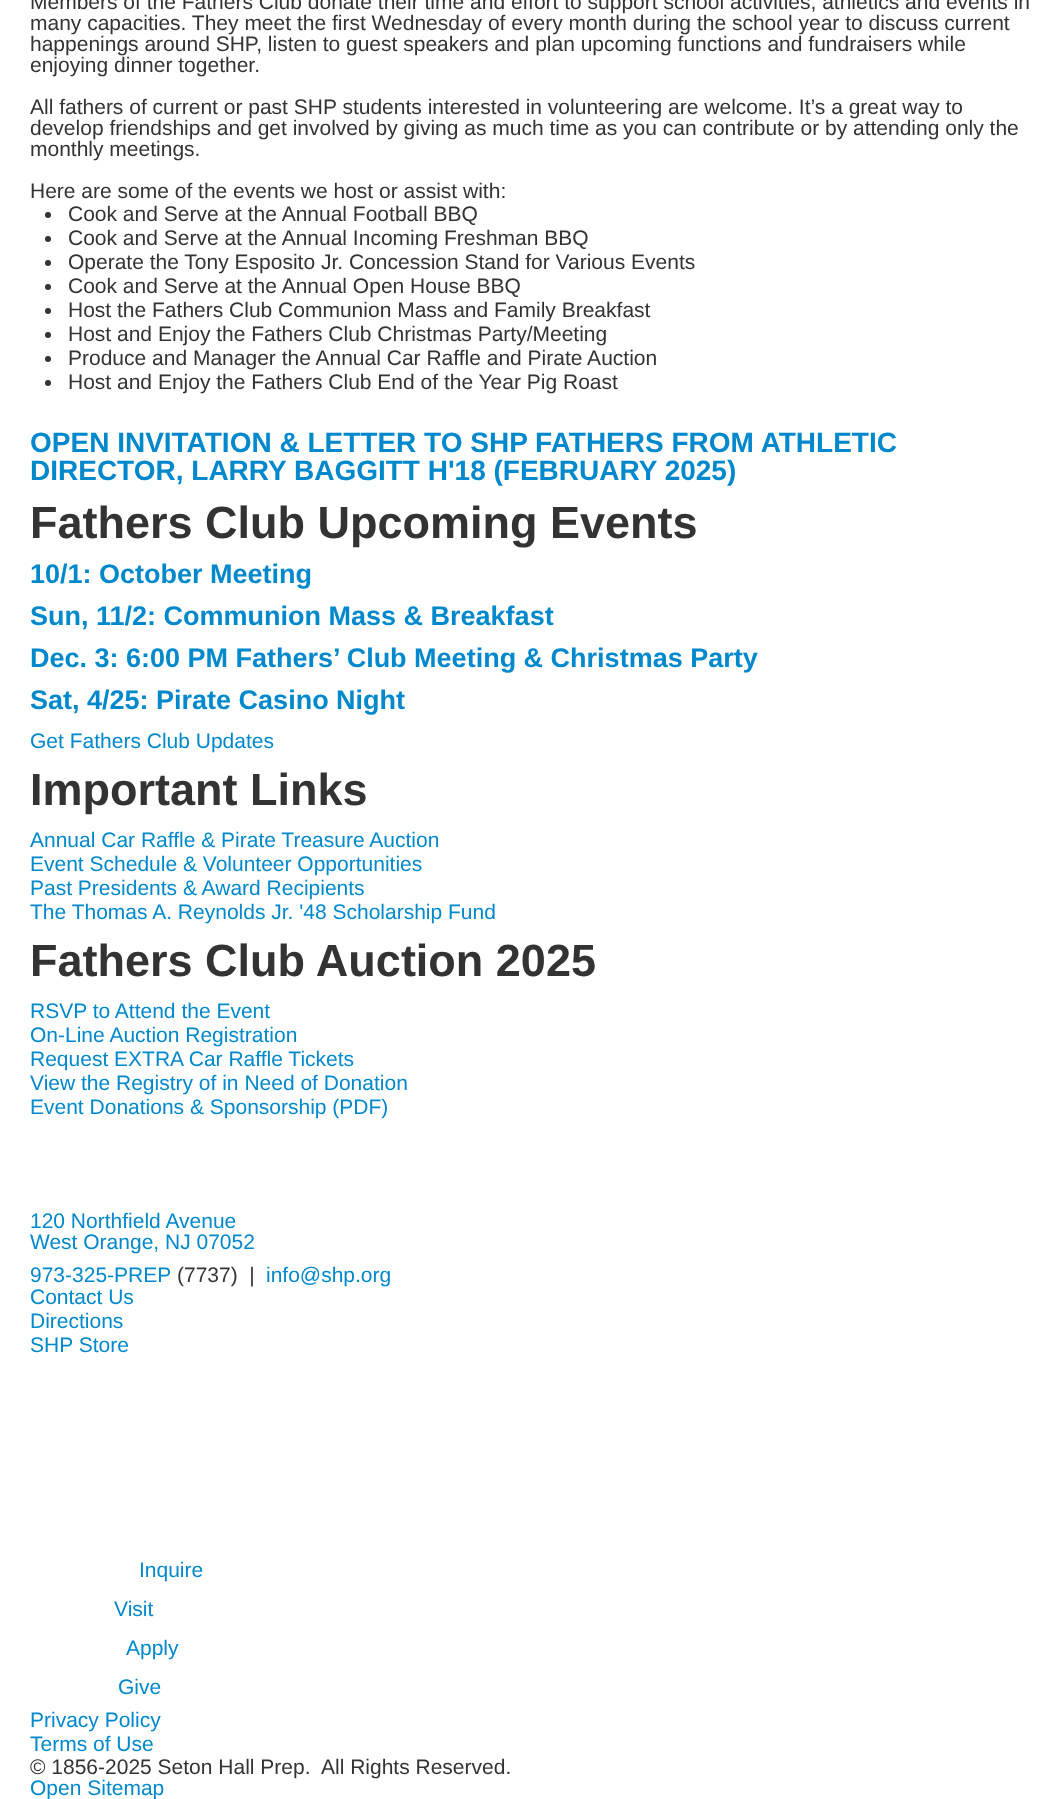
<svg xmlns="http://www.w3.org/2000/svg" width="1063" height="1799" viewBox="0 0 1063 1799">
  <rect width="100%" height="100%" fill="#fff"/>
  <circle cx="48" cy="215" r="3" fill="#333"/>
  <circle cx="48" cy="239" r="3" fill="#333"/>
  <circle cx="48" cy="263" r="3" fill="#333"/>
  <circle cx="48" cy="287" r="3" fill="#333"/>
  <circle cx="48" cy="311" r="3" fill="#333"/>
  <circle cx="48" cy="335" r="3" fill="#333"/>
  <circle cx="48" cy="359" r="3" fill="#333"/>
  <circle cx="48" cy="383" r="3" fill="#333"/>
  <g font-family="Liberation Sans" font-size="21" fill="#333">
    <text x="30" y="9">Members of the Fathers Club donate their time and effort to support school activities, athletics and events in</text>
    <text x="30" y="30">many capacities. They meet the first Wednesday of every month during the school year to discuss current</text>
    <text x="30" y="51">happenings around SHP, listen to guest speakers and plan upcoming functions and fundraisers while</text>
    <text x="30" y="72">enjoying dinner together.</text>
    <text x="30" y="114">All fathers of current or past SHP students interested in volunteering are welcome. It’s a great way to</text>
    <text x="30" y="135">develop friendships and get involved by giving as much time as you can contribute or by attending only the</text>
    <text x="30" y="156">monthly meetings.</text>
    <text x="30" y="198">Here are some of the events we host or assist with:</text>
    <text x="68" y="221">Cook and Serve at the Annual Football BBQ</text>
    <text x="68" y="245">Cook and Serve at the Annual Incoming Freshman BBQ</text>
    <text x="68" y="269">Operate the Tony Esposito Jr. Concession Stand for Various Events</text>
    <text x="68" y="293">Cook and Serve at the Annual Open House BBQ</text>
    <text x="68" y="317">Host the Fathers Club Communion Mass and Family Breakfast</text>
    <text x="68" y="341">Host and Enjoy the Fathers Club Christmas Party/Meeting</text>
    <text x="68" y="365">Produce and Manager the Annual Car Raffle and Pirate Auction</text>
    <text x="68" y="389">Host and Enjoy the Fathers Club End of the Year Pig Roast</text>
  </g>
  <g font-family="Liberation Sans" font-size="28" font-weight="bold" fill="#08c">
    <text x="30" y="452">OPEN INVITATION &amp; LETTER TO SHP FATHERS FROM ATHLETIC</text>
    <text x="30" y="480">DIRECTOR, LARRY BAGGITT H'18 (FEBRUARY 2025)</text>
  </g>
  <text x="30" y="538" font-family="Liberation Sans" font-size="45" font-weight="bold" fill="#333">Fathers Club Upcoming Events</text>
  <g font-family="Liberation Sans" font-size="27" font-weight="bold" fill="#08c">
    <text x="30" y="583">10/1: October Meeting</text>
    <text x="30" y="625">Sun, 11/2: Communion Mass &amp; Breakfast</text>
    <text x="30" y="667">Dec. 3: 6:00 PM Fathers’ Club Meeting &amp; Christmas Party</text>
    <text x="30" y="709">Sat, 4/25: Pirate Casino Night</text>
  </g>
  <text x="30" y="748" font-family="Liberation Sans" font-size="21" fill="#08c">Get Fathers Club Updates</text>
  <text x="30" y="805" font-family="Liberation Sans" font-size="45" font-weight="bold" fill="#333">Important Links</text>
  <g font-family="Liberation Sans" font-size="21" fill="#08c">
    <text x="30" y="847">Annual Car Raffle &amp; Pirate Treasure Auction</text>
    <text x="30" y="871">Event Schedule &amp; Volunteer Opportunities</text>
    <text x="30" y="895">Past Presidents &amp; Award Recipients</text>
    <text x="30" y="919">The Thomas A. Reynolds Jr. '48 Scholarship Fund</text>
  </g>
  <text x="30" y="976" font-family="Liberation Sans" font-size="45" font-weight="bold" fill="#333">Fathers Club Auction 2025</text>
  <g font-family="Liberation Sans" font-size="21" fill="#08c">
    <text x="30" y="1018">RSVP to Attend the Event</text>
    <text x="30" y="1042">On-Line Auction Registration</text>
    <text x="30" y="1066">Request EXTRA Car Raffle Tickets</text>
    <text x="30" y="1090">View the Registry of in Need of Donation</text>
    <text x="30" y="1114">Event Donations &amp; Sponsorship (PDF)</text>
    <text x="30" y="1228">120 Northfield Avenue</text>
    <text x="30" y="1249">West Orange, NJ 07052</text>
    <text x="30" y="1282">973-325-PREP</text>
  </g>
  <text x="177" y="1282" font-family="Liberation Sans" font-size="21" fill="#333" xml:space="preserve">(7737)  |</text>
  <g font-family="Liberation Sans" font-size="21" fill="#08c">
    <text x="266" y="1282">info@shp.org</text>
    <text x="30" y="1304">Contact Us</text>
    <text x="30" y="1328">Directions</text>
    <text x="30" y="1352">SHP Store</text>
    <text x="139" y="1577">Inquire</text>
    <text x="114" y="1616">Visit</text>
    <text x="126" y="1655">Apply</text>
    <text x="118" y="1694">Give</text>
    <text x="30" y="1727">Privacy Policy</text>
    <text x="30" y="1751">Terms of Use</text>
  </g>
  <text x="30" y="1774" font-family="Liberation Sans" font-size="21" fill="#333" xml:space="preserve">© 1856-2025 Seton Hall Prep.  All Rights Reserved.</text>
  <text x="30" y="1795" font-family="Liberation Sans" font-size="21" fill="#08c">Open Sitemap</text>
</svg>
